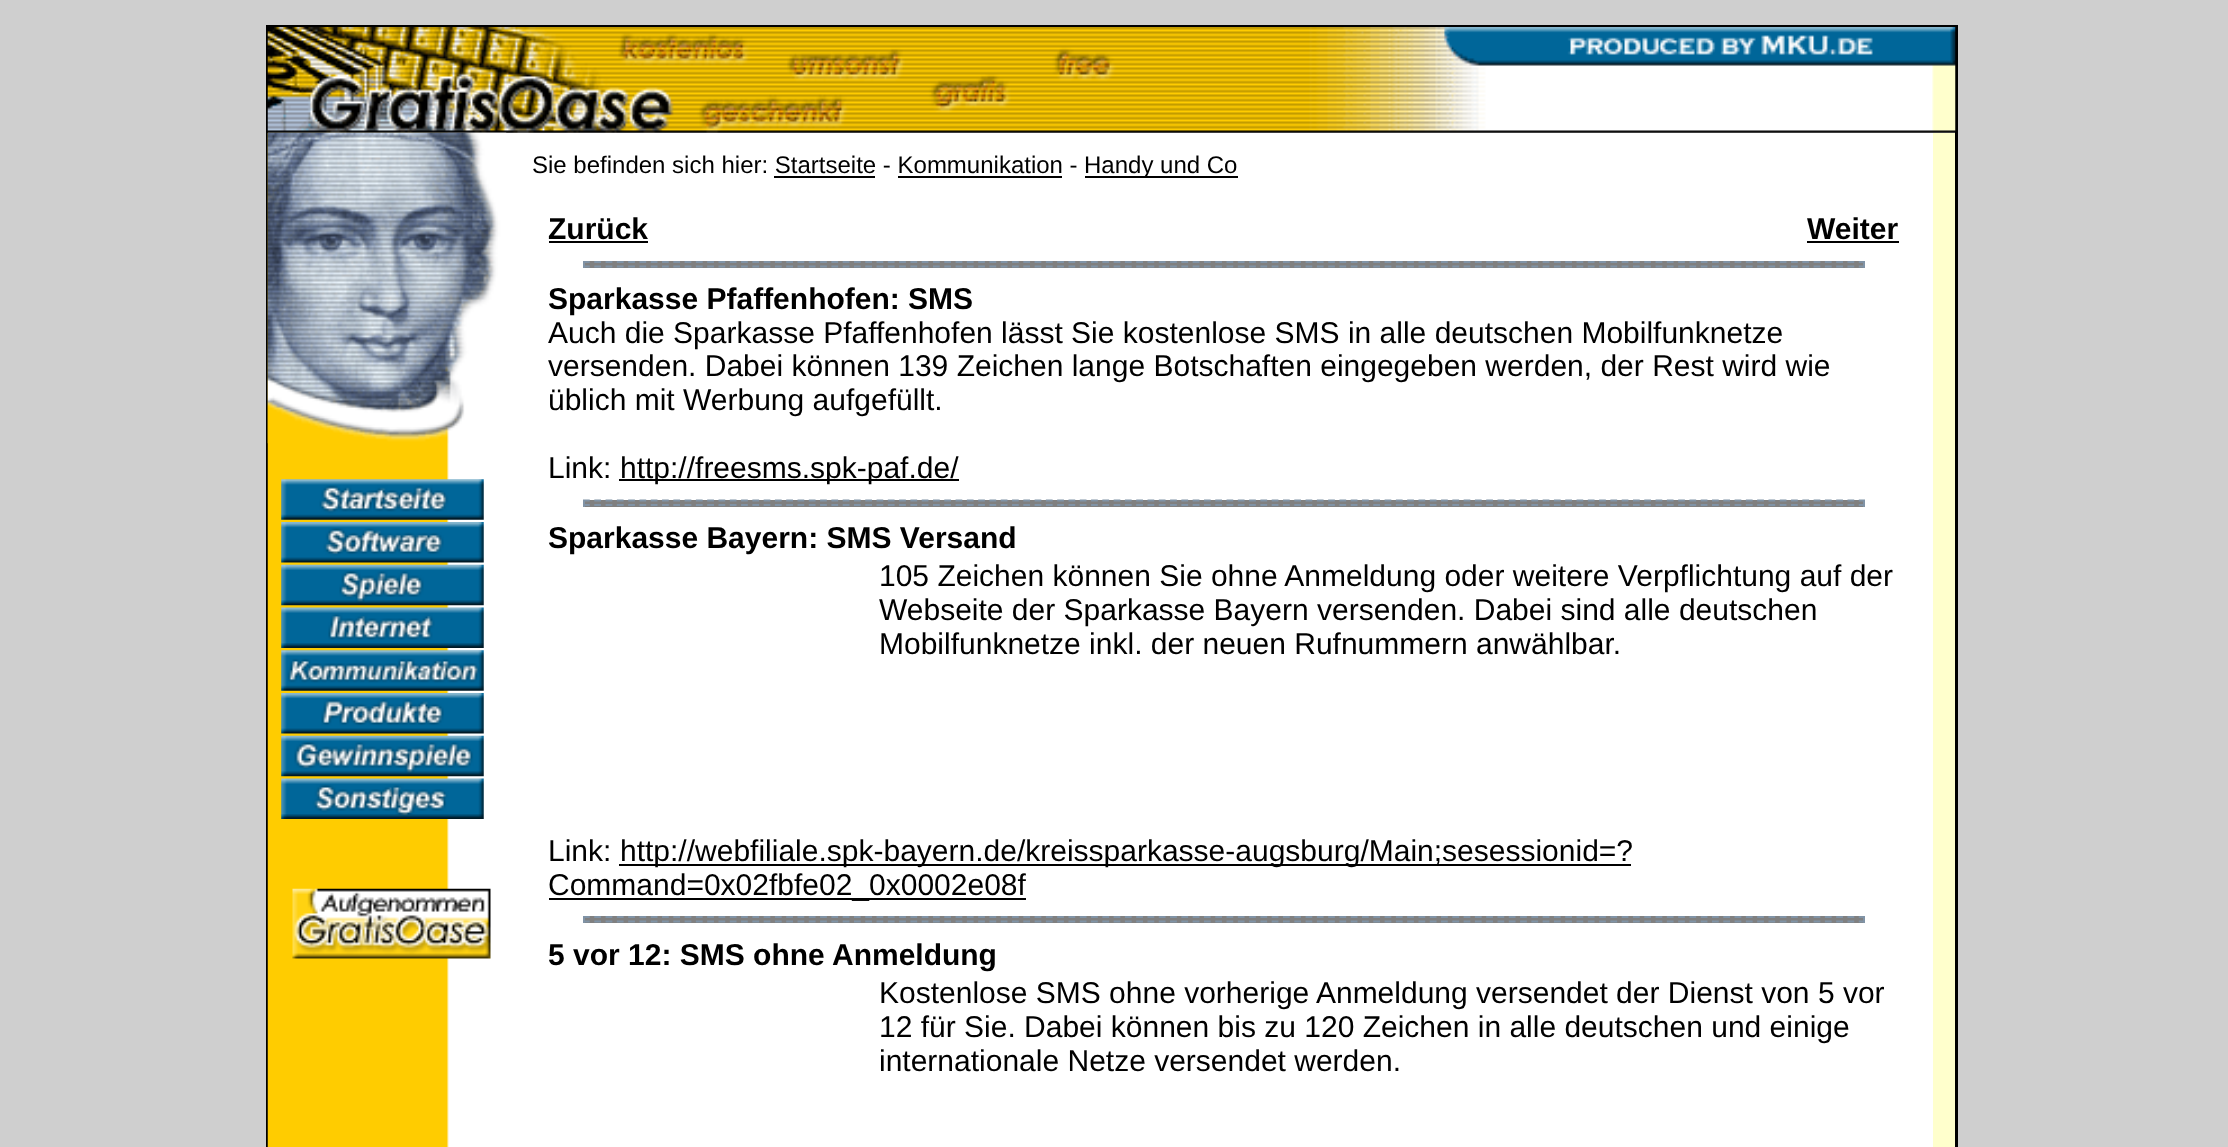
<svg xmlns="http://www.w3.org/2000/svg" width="2228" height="1147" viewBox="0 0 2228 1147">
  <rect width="100%" height="100%" fill="#cfcfcf"/>
  <path d="M266 25h1692v1122H266z" fill="#000"/>
  <path d="M268 132h1687v1015H268z" fill="#fff"/>
  <image x="267" y="132" width="182" height="1015" href="img/2.png"/>
  <image x="267" y="27" width="1689" height="106" href="img/1.png"/>
  <image x="267" y="132" width="240" height="312" href="img/3.png"/>
  <image x="281" y="479" width="203" height="41" href="img/4.png"/>
  <image x="281" y="522" width="203" height="41" href="img/5.png"/>
  <image x="281" y="564" width="203" height="42" href="img/6.png"/>
  <image x="281" y="607" width="203" height="41" href="img/7.png"/>
  <image x="281" y="650" width="203" height="41" href="img/8.png"/>
  <image x="281" y="693" width="203" height="41" href="img/9.png"/>
  <image x="281" y="735" width="203" height="42" href="img/10.png"/>
  <image x="281" y="778" width="203" height="41" href="img/11.png"/>
  <image x="292" y="888" width="199" height="71" href="img/12.png"/>
  <path d="M774 176h101v2H774z" fill="#000"/>
  <path d="M898 176h164v2H898z" fill="#000"/>
  <path d="M1085 176h153v2H1085z" fill="#000"/>
  <path d="M549 241h99v2H549z" fill="#000"/>
  <path d="M1807 241h92v2H1807z" fill="#000"/>
  <path d="M583 261h1282v7H583z" fill="#808080"/>
  <path d="M583 262H1865" fill="none" stroke="#8093a6" stroke-width="2.2" stroke-dasharray="6.75 4.54"/>
  <path d="M1863 261h2v7H1863z" fill="#8093a6"/>
  <path d="M583 266.5H1865" fill="none" stroke="#8093a6" stroke-width="2.2" stroke-dasharray="6.75 4.54"/>
  <path d="M583 261h2v7H583z" fill="#8093a6"/>
  <path d="M619 479h340v2H619z" fill="#000"/>
  <path d="M583 500h1282v7H583z" fill="#808080"/>
  <path d="M583 500.5H1865" fill="none" stroke="#8093a6" stroke-width="2.2" stroke-dasharray="6.75 4.54"/>
  <path d="M1863 500h2v7H1863z" fill="#8093a6"/>
  <path d="M583 505H1865" fill="none" stroke="#8093a6" stroke-width="2.2" stroke-dasharray="6.75 4.54"/>
  <path d="M583 500h2v7H583z" fill="#8093a6"/>
  <path d="M619 864h1012v2H619z" fill="#000"/>
  <path d="M549 898h477v2H549z" fill="#000"/>
  <path d="M583 916h1282v7H583z" fill="#808080"/>
  <path d="M583 917H1865" fill="none" stroke="#8093a6" stroke-width="2.2" stroke-dasharray="6.75 4.54"/>
  <path d="M1863 916h2v7H1863z" fill="#8093a6"/>
  <path d="M583 921.5H1865" fill="none" stroke="#8093a6" stroke-width="2.2" stroke-dasharray="6.75 4.54"/>
  <path d="M583 916h2v7H583z" fill="#8093a6"/>
  <path d="M1933 133h22v1014H1933z" fill="#ffc"/>
  <g font-family="Liberation Sans" font-size="24" fill="#000">
    <text x="532" y="173">Sie befinden sich hier: Startseite - Kommunikation -</text>
    <text x="1084" y="173">Handy und Co</text>
  </g>
  <g font-family="Liberation Sans" font-size="30" font-weight="bold" fill="#000">
    <text x="548" y="239">Zurück</text>
    <text x="1807" y="239">Weiter</text>
    <text x="548" y="309">Sparkasse Pfaffenhofen: SMS</text>
  </g>
  <g font-family="Liberation Sans" font-size="30" fill="#000">
    <text x="548" y="343">Auch die Sparkasse Pfaffenhofen lässt Sie kostenlose SMS in alle deutschen Mobilfunknetze</text>
    <text x="548" y="376">versenden. Dabei können 139 Zeichen lange Botschaften eingegeben werden, der Rest wird wie</text>
    <text x="548" y="410">üblich mit Werbung aufgefüllt.</text>
    <text x="548" y="478">Link:</text>
    <text x="620" y="478">http://freesms.spk-paf.de/</text>
  </g>
  <text x="548" y="548" font-family="Liberation Sans" font-size="30" font-weight="bold" fill="#000">Sparkasse Bayern: SMS Versand</text>
  <g font-family="Liberation Sans" font-size="30" fill="#000">
    <text x="879" y="586">105 Zeichen können Sie ohne Anmeldung oder weitere Verpflichtung auf der</text>
    <text x="879" y="620">Webseite der Sparkasse Bayern versenden. Dabei sind alle deutschen</text>
    <text x="879" y="654">Mobilfunknetze inkl. der neuen Rufnummern anwählbar.</text>
    <text x="548" y="861">Link:</text>
    <text x="620" y="861">http://webfiliale.spk-bayern.de/kreissparkasse-augsburg/Main;sesessionid=?</text>
    <text x="548" y="895">Command=0x02fbfe02_0x0002e08f</text>
  </g>
  <text x="548" y="965" font-family="Liberation Sans" font-size="30" font-weight="bold" fill="#000">5 vor 12: SMS ohne Anmeldung</text>
  <g font-family="Liberation Sans" font-size="30" fill="#000">
    <text x="879" y="1003">Kostenlose SMS ohne vorherige Anmeldung versendet der Dienst von 5 vor</text>
    <text x="879" y="1037">12 für Sie. Dabei können bis zu 120 Zeichen in alle deutschen und einige</text>
    <text x="879" y="1071">internationale Netze versendet werden.</text>
  </g>
</svg>
